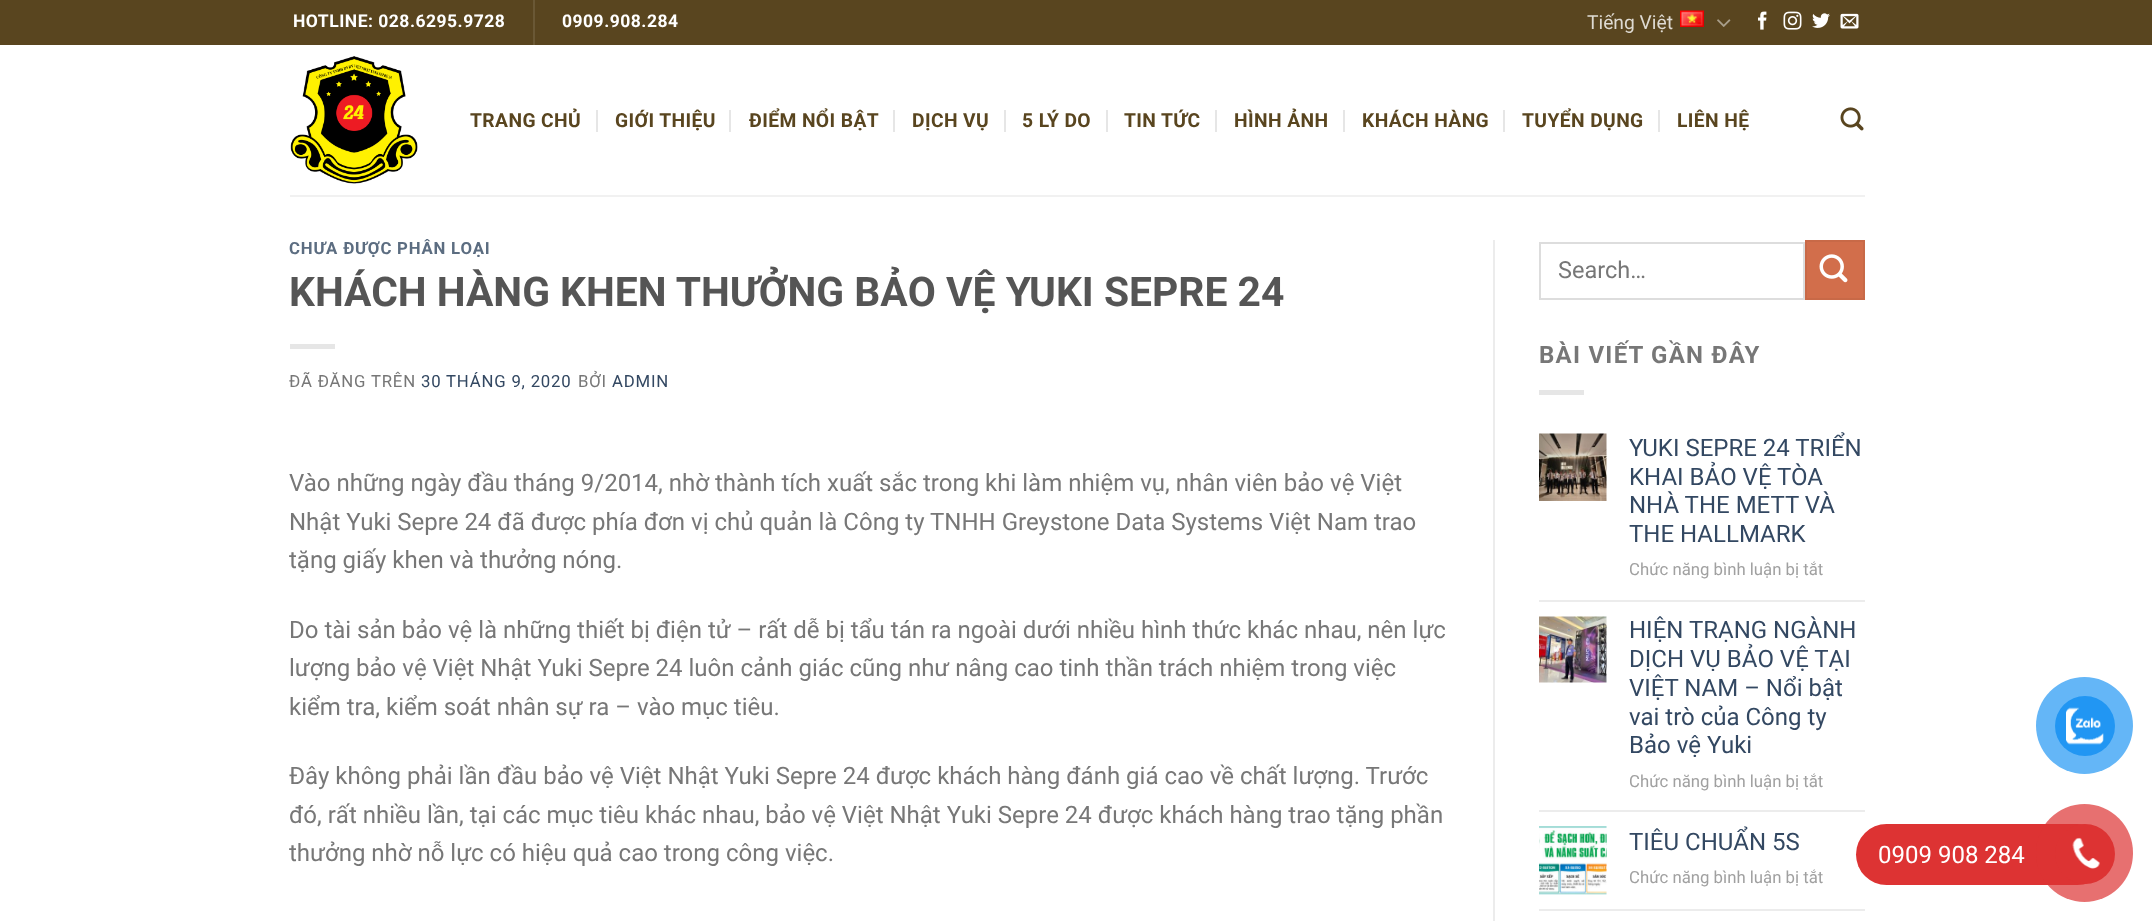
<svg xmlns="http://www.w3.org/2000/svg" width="2152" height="921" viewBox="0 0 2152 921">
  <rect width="100%" height="100%" fill="#fff"/>
  <path d="M0 0h2152v45H0z" fill="#59451f"/>
  <path d="M533 0h2v45H533z" fill="#6a5835"/>
  <image x="1680" y="10" width="24" height="17" href="img/1.png"/>
  <image x="1717" y="19" width="14" height="8" href="img/2.png"/>
  <image x="1758" y="11" width="9" height="19" href="img/3.png"/>
  <image x="1783" y="11" width="19" height="19" href="img/4.png"/>
  <image x="1812" y="13" width="18" height="15" href="img/5.png"/>
  <image x="1840" y="13" width="19" height="16" href="img/6.png"/>
  <image x="290" y="56" width="128" height="128" href="img/7.png"/>
  <path d="M596 110h2v22H596z" fill="#e6e6e6"/>
  <path d="M729 110h2v22H729z" fill="#e6e6e6"/>
  <path d="M893 110h2v22H893z" fill="#e6e6e6"/>
  <path d="M1004 110h2v22H1004z" fill="#e6e6e6"/>
  <path d="M1106 110h2v22H1106z" fill="#e6e6e6"/>
  <path d="M1215 110h2v22H1215z" fill="#e6e6e6"/>
  <path d="M1343 110h2v22H1343z" fill="#e6e6e6"/>
  <path d="M1503 110h2v22H1503z" fill="#e6e6e6"/>
  <path d="M1658 110h2v22H1658z" fill="#e6e6e6"/>
  <image x="1840" y="107" width="24" height="24" href="img/8.png"/>
  <path d="M290 195h1575v2H290z" fill="#f1f1f1"/>
  <path d="M290 344h45v5H290z" fill="#e6e6e6"/>
  <path d="M1493 240h2v681H1493z" fill="#ececec"/>
  <path d="M1540 243h264v56H1540z" fill="none" stroke="#ddd" stroke-width="2"/>
  <path d="M1806 241h58v58H1806z" fill="#d26e4b" stroke="#c86947" stroke-width="2"/>
  <image x="1819" y="254" width="29" height="29" href="img/9.png"/>
  <path d="M1539 390h45v5H1539z" fill="#e6e6e6"/>
  <image x="1539" y="433" width="68" height="68" href="img/10.png"/>
  <path d="M1539 600h326v2H1539z" fill="#ececec"/>
  <image x="1539" y="616" width="68" height="67" href="img/11.png"/>
  <path d="M1539 810h326v2H1539z" fill="#ececec"/>
  <image x="1539" y="826" width="68" height="69" href="img/12.png"/>
  <path d="M1539 909h326v2H1539z" fill="#ececec"/>
  <circle cx="2084.5" cy="725.5" r="48.5" fill="#64b6f7"/>
  <circle cx="2085" cy="726" r="30" fill="#2196f3"/>
  <image x="2066" y="707" width="38" height="38" href="img/13.png"/>
  <rect x="1856" y="824" width="252" height="61" rx="30.5" fill="#d33"/>
  <rect x="2036" y="804" width="97" height="98" rx="48.5" fill="#dd3333b3"/>
  <circle cx="2085" cy="854" r="30" fill="#d33"/>
  <image x="2072" y="837" width="28" height="32" href="img/14.png"/>
  <g font-family="Roboto" font-size="17.5" font-weight="bold" letter-spacing="0.5" fill="#fff">
    <text x="293" y="27">HOTLINE: 028.6295.9728</text>
    <text x="562" y="27">0909.908.284</text>
  </g>
  <text x="1587" y="29" font-family="Roboto" font-size="19.25" fill="#dedad2">Tiếng Việt</text>
  <g font-family="Roboto" font-size="19.25" font-weight="bold" letter-spacing="0.4" fill="#59451f">
    <text x="470" y="127">TRANG CHỦ</text>
    <text x="615" y="127">GIỚI THIỆU</text>
    <text x="749" y="127">ĐIỂM NỔI BẬT</text>
    <text x="912" y="127">DỊCH VỤ</text>
    <text x="1022" y="127">5 LÝ DO</text>
    <text x="1124" y="127">TIN TỨC</text>
    <text x="1234" y="127">HÌNH ẢNH</text>
    <text x="1362" y="127">KHÁCH HÀNG</text>
    <text x="1522" y="127">TUYỂN DỤNG</text>
    <text x="1677" y="127">LIÊN HỆ</text>
  </g>
  <text x="289" y="254" font-family="Roboto" font-size="16.75" font-weight="bold" letter-spacing="0.8" fill="#5c6d81">CHƯA ĐƯỢC PHÂN LOẠI</text>
  <text x="289" y="306" font-family="Roboto" font-size="40.8" font-weight="bold" fill="#555">KHÁCH HÀNG KHEN THƯỞNG BẢO VỆ YUKI SEPRE 24</text>
  <text x="289" y="387" font-family="Roboto" font-size="16.75" letter-spacing="0.8" fill="#777">ĐÃ ĐĂNG TRÊN</text>
  <text x="421" y="387" font-family="Roboto" font-size="16.75" letter-spacing="0.8" fill="#334862">30 THÁNG 9, 2020</text>
  <text x="578" y="387" font-family="Roboto" font-size="16.75" letter-spacing="0.8" fill="#777">BỞI</text>
  <text x="612" y="387" font-family="Roboto" font-size="16.75" letter-spacing="0.8" fill="#334862">ADMIN</text>
  <g font-family="Roboto" font-size="24" fill="#777">
    <text x="289" y="491">Vào những ngày đầu tháng 9/2014, nhờ thành tích xuất sắc trong khi làm nhiệm vụ, nhân viên bảo vệ Việt</text>
    <text x="289" y="530">Nhật Yuki Sepre 24 đã được phía đơn vị chủ quản là Công ty TNHH Greystone Data Systems Việt Nam trao</text>
    <text x="289" y="568">tặng giấy khen và thưởng nóng.</text>
    <text x="289" y="638">Do tài sản bảo vệ là những thiết bị điện tử – rất dễ bị tẩu tán ra ngoài dưới nhiều hình thức khác nhau, nên lực</text>
    <text x="289" y="676">lượng bảo vệ Việt Nhật Yuki Sepre 24 luôn cảnh giác cũng như nâng cao tinh thần trách nhiệm trong việc</text>
    <text x="289" y="715">kiểm tra, kiểm soát nhân sự ra – vào mục tiêu.</text>
    <text x="289" y="784">Đây không phải lần đầu bảo vệ Việt Nhật Yuki Sepre 24 được khách hàng đánh giá cao về chất lượng. Trước</text>
    <text x="289" y="823">đó, rất nhiều lần, tại các mục tiêu khác nhau, bảo vệ Việt Nhật Yuki Sepre 24 được khách hàng trao tặng phần</text>
    <text x="289" y="861">thưởng nhờ nỗ lực có hiệu quả cao trong công việc.</text>
  </g>
  <text x="1558" y="278" font-family="Roboto" font-size="23.5" fill="#777">Search…</text>
  <text x="1539" y="363" font-family="Roboto" font-size="24" font-weight="bold" letter-spacing="1.25" fill="#777">BÀI VIẾT GẦN ĐÂY</text>
  <g font-family="Roboto" font-size="24" fill="#334862">
    <text x="1629" y="456">YUKI SEPRE 24 TRIỂN</text>
    <text x="1629" y="485">KHAI BẢO VỆ TÒA</text>
    <text x="1629" y="513">NHÀ THE METT VÀ</text>
    <text x="1629" y="542">THE HALLMARK</text>
  </g>
  <text x="1629" y="575" font-family="Roboto" font-size="16.75" fill="#a0a0a0">Chức năng bình luận bị tắt</text>
  <g font-family="Roboto" font-size="24" fill="#334862">
    <text x="1629" y="638">HIỆN TRẠNG NGÀNH</text>
    <text x="1629" y="667">DỊCH VỤ BẢO VỆ TẠI</text>
    <text x="1629" y="696">VIỆT NAM – Nổi bật</text>
    <text x="1629" y="725">vai trò của Công ty</text>
    <text x="1629" y="753">Bảo vệ Yuki</text>
  </g>
  <text x="1629" y="787" font-family="Roboto" font-size="16.75" fill="#a0a0a0">Chức năng bình luận bị tắt</text>
  <text x="1629" y="850" font-family="Roboto" font-size="24" fill="#334862">TIÊU CHUẨN 5S</text>
  <text x="1629" y="883" font-family="Roboto" font-size="16.75" fill="#a0a0a0">Chức năng bình luận bị tắt</text>
  <text x="1878" y="863" font-family="Roboto" font-size="24" fill="#fff">0909 908 284</text>
</svg>
